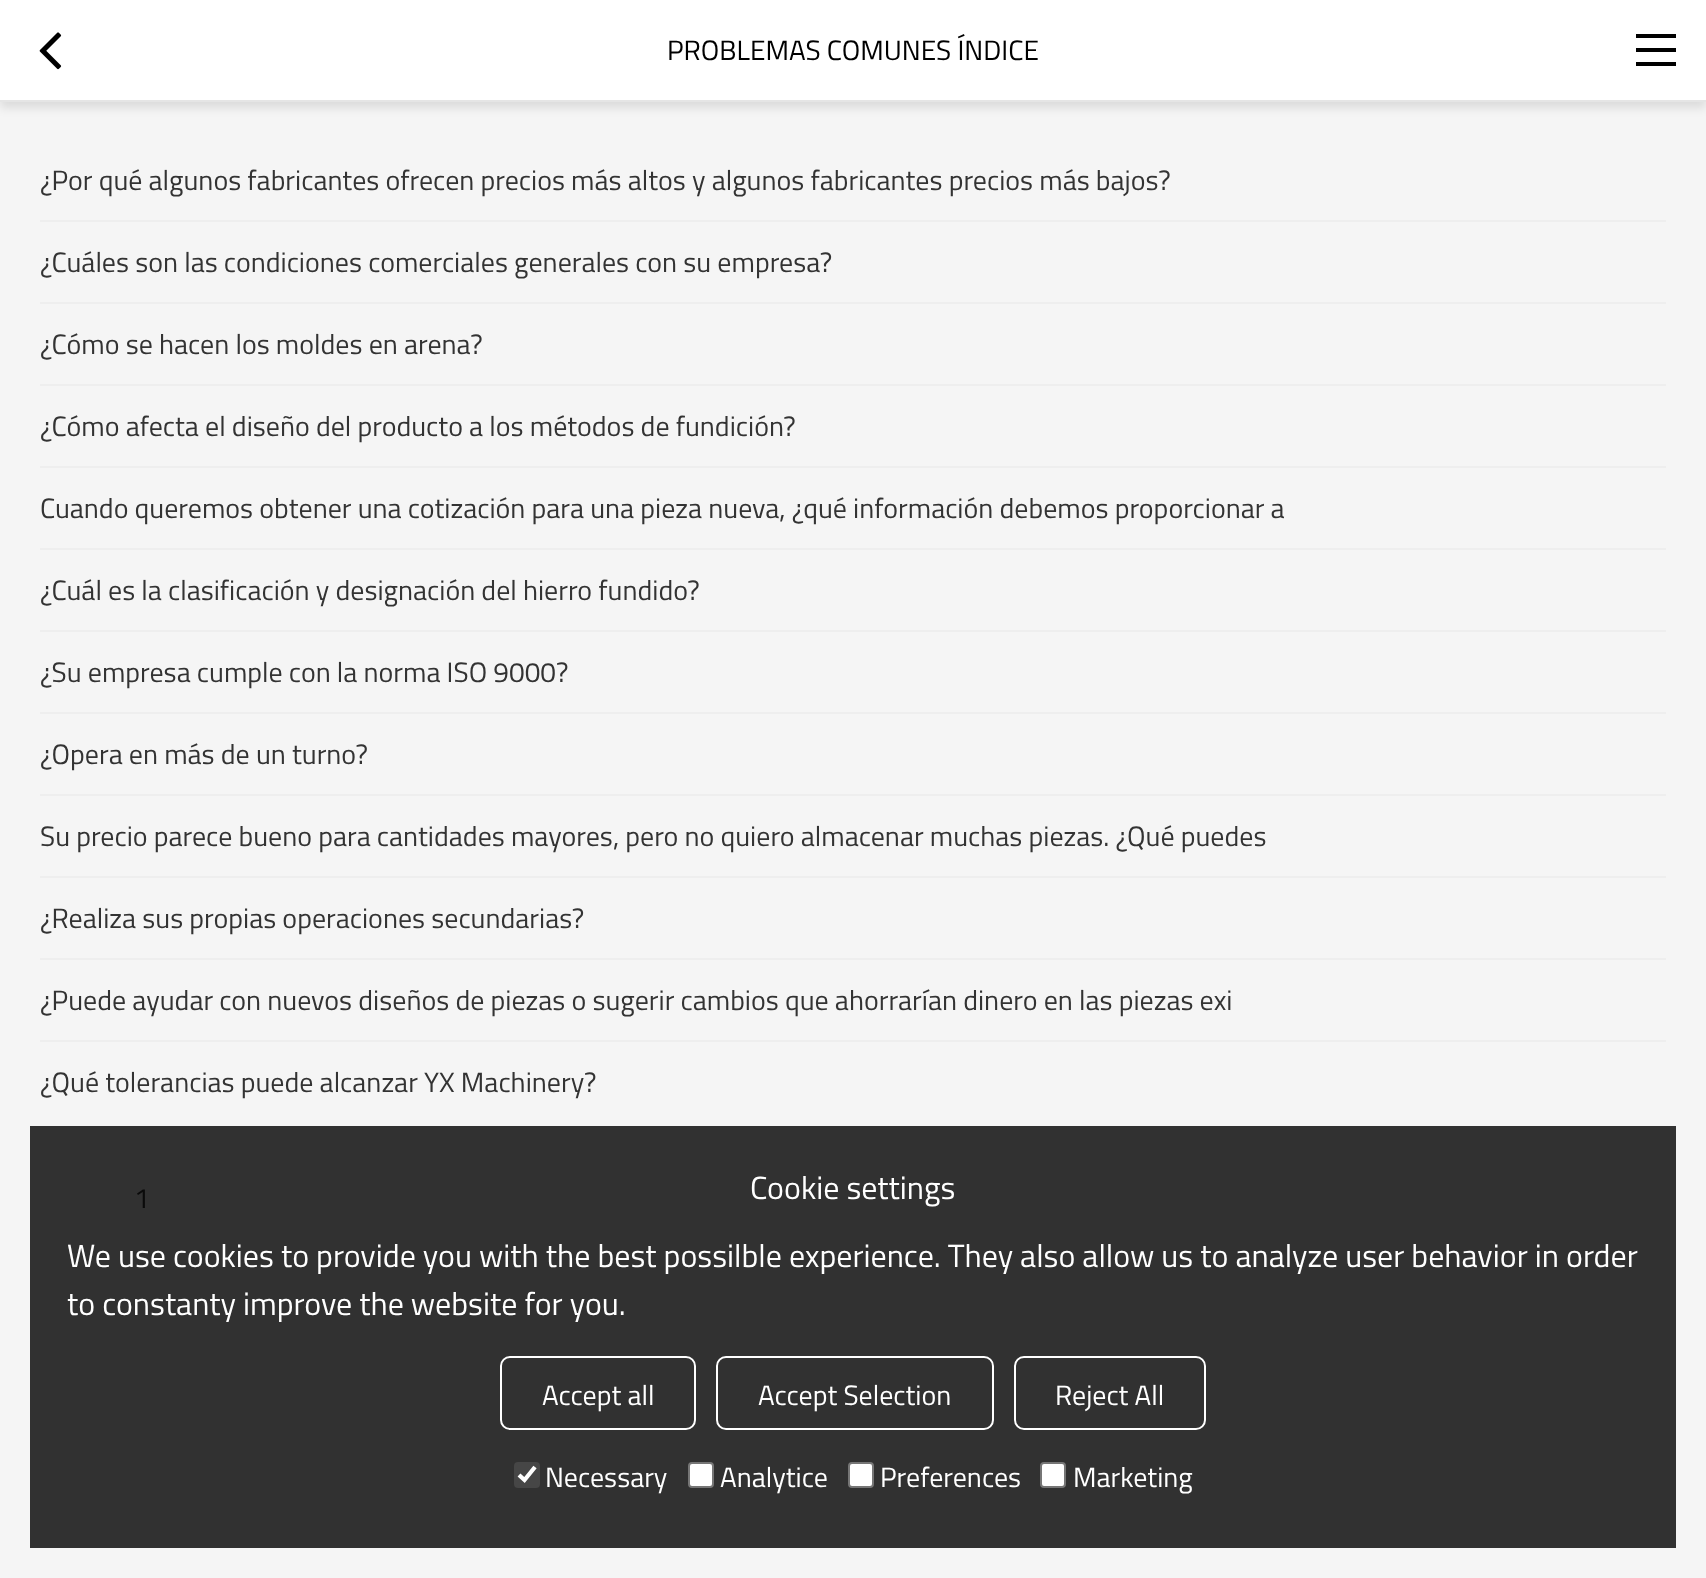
<svg xmlns="http://www.w3.org/2000/svg" width="1706" height="1578" viewBox="0 0 1706 1578">
  <rect width="100%" height="100%" fill="#f5f5f5"/>
  <path d="M30 1126h1646v422H30z" fill="#313131"/>
  <path d="M0 6h1706v102H0z" fill="#0000001a" filter="blur(5px)"/>
  <path d="M0 0h1706v100H0z" fill="#fff"/>
  <path d="M0 100h1706v2H0z" fill="#e5e5e5"/>
  <image x="39" y="32" width="23" height="38" href="img/1.png"/>
  <path d="M1636 34h40v4H1636z" fill="#000"/>
  <path d="M1636 48h40v4H1636z" fill="#000"/>
  <path d="M1636 62h40v4H1636z" fill="#000"/>
  <path d="M40 220h1626v2H40z" fill="#eee"/>
  <path d="M40 302h1626v2H40z" fill="#eee"/>
  <path d="M40 384h1626v2H40z" fill="#eee"/>
  <path d="M40 466h1626v2H40z" fill="#eee"/>
  <path d="M40 548h1626v2H40z" fill="#eee"/>
  <path d="M40 630h1626v2H40z" fill="#eee"/>
  <path d="M40 712h1626v2H40z" fill="#eee"/>
  <path d="M40 794h1626v2H40z" fill="#eee"/>
  <path d="M40 876h1626v2H40z" fill="#eee"/>
  <path d="M40 958h1626v2H40z" fill="#eee"/>
  <path d="M40 1040h1626v2H40z" fill="#eee"/>
  <rect x="501" y="1357" width="194" height="72" rx="9" fill="none" stroke="#fff" stroke-width="2"/>
  <rect x="717" y="1357" width="276" height="72" rx="9" fill="none" stroke="#fff" stroke-width="2"/>
  <rect x="1015" y="1357" width="190" height="72" rx="9" fill="none" stroke="#fff" stroke-width="2"/>
  <rect x="514" y="1462" width="26" height="26" rx="4" fill="#464646"/>
  <path d="M519 1475L524.5 1480L535 1467" fill="none" stroke="#fff" stroke-width="4.2"/>
  <rect x="689" y="1463" width="24" height="24" rx="3" fill="#fff" stroke="#767676" stroke-width="2"/>
  <rect x="849" y="1463" width="24" height="24" rx="3" fill="#fff" stroke="#767676" stroke-width="2"/>
  <rect x="1041" y="1463" width="24" height="24" rx="3" fill="#fff" stroke="#767676" stroke-width="2"/>
  <text x="667" y="60" font-family="Titillium Web" font-size="28" fill="#000">PROBLEMAS COMUNES ÍNDICE</text>
  <g font-family="Titillium Web" font-size="28" fill="#333">
    <text x="40" y="190">¿Por qué algunos fabricantes ofrecen precios más altos y algunos fabricantes precios más bajos?</text>
    <text x="40" y="272">¿Cuáles son las condiciones comerciales generales con su empresa?</text>
    <text x="40" y="354">¿Cómo se hacen los moldes en arena?</text>
    <text x="40" y="436">¿Cómo afecta el diseño del producto a los métodos de fundición?</text>
    <text x="40" y="518">Cuando queremos obtener una cotización para una pieza nueva, ¿qué información debemos proporcionar a</text>
    <text x="40" y="600">¿Cuál es la clasificación y designación del hierro fundido?</text>
    <text x="40" y="682">¿Su empresa cumple con la norma ISO 9000?</text>
    <text x="40" y="764">¿Opera en más de un turno?</text>
    <text x="40" y="846">Su precio parece bueno para cantidades mayores, pero no quiero almacenar muchas piezas. ¿Qué puedes</text>
    <text x="40" y="928">¿Realiza sus propias operaciones secundarias?</text>
    <text x="40" y="1010">¿Puede ayudar con nuevos diseños de piezas o sugerir cambios que ahorrarían dinero en las piezas exi</text>
    <text x="40" y="1092">¿Qué tolerancias puede alcanzar YX Machinery?</text>
  </g>
  <text x="134" y="1208" font-family="Titillium Web" font-size="28" fill="#0a0a0a">1</text>
  <g font-family="Titillium Web" font-size="32" fill="#fff">
    <text x="750" y="1199">Cookie settings</text>
    <text x="67" y="1267">We use cookies to provide you with the best possilble experience. They also allow us to analyze user behavior in order</text>
    <text x="67" y="1315">to constanty improve the website for you.</text>
  </g>
  <g font-family="Titillium Web" font-size="28" fill="#fff">
    <text x="542" y="1405">Accept all</text>
    <text x="758" y="1405">Accept Selection</text>
    <text x="1055" y="1405">Reject All</text>
    <text x="545" y="1487">Necessary</text>
    <text x="720" y="1487">Analytice</text>
    <text x="880" y="1487">Preferences</text>
    <text x="1073" y="1487">Marketing</text>
  </g>
</svg>
